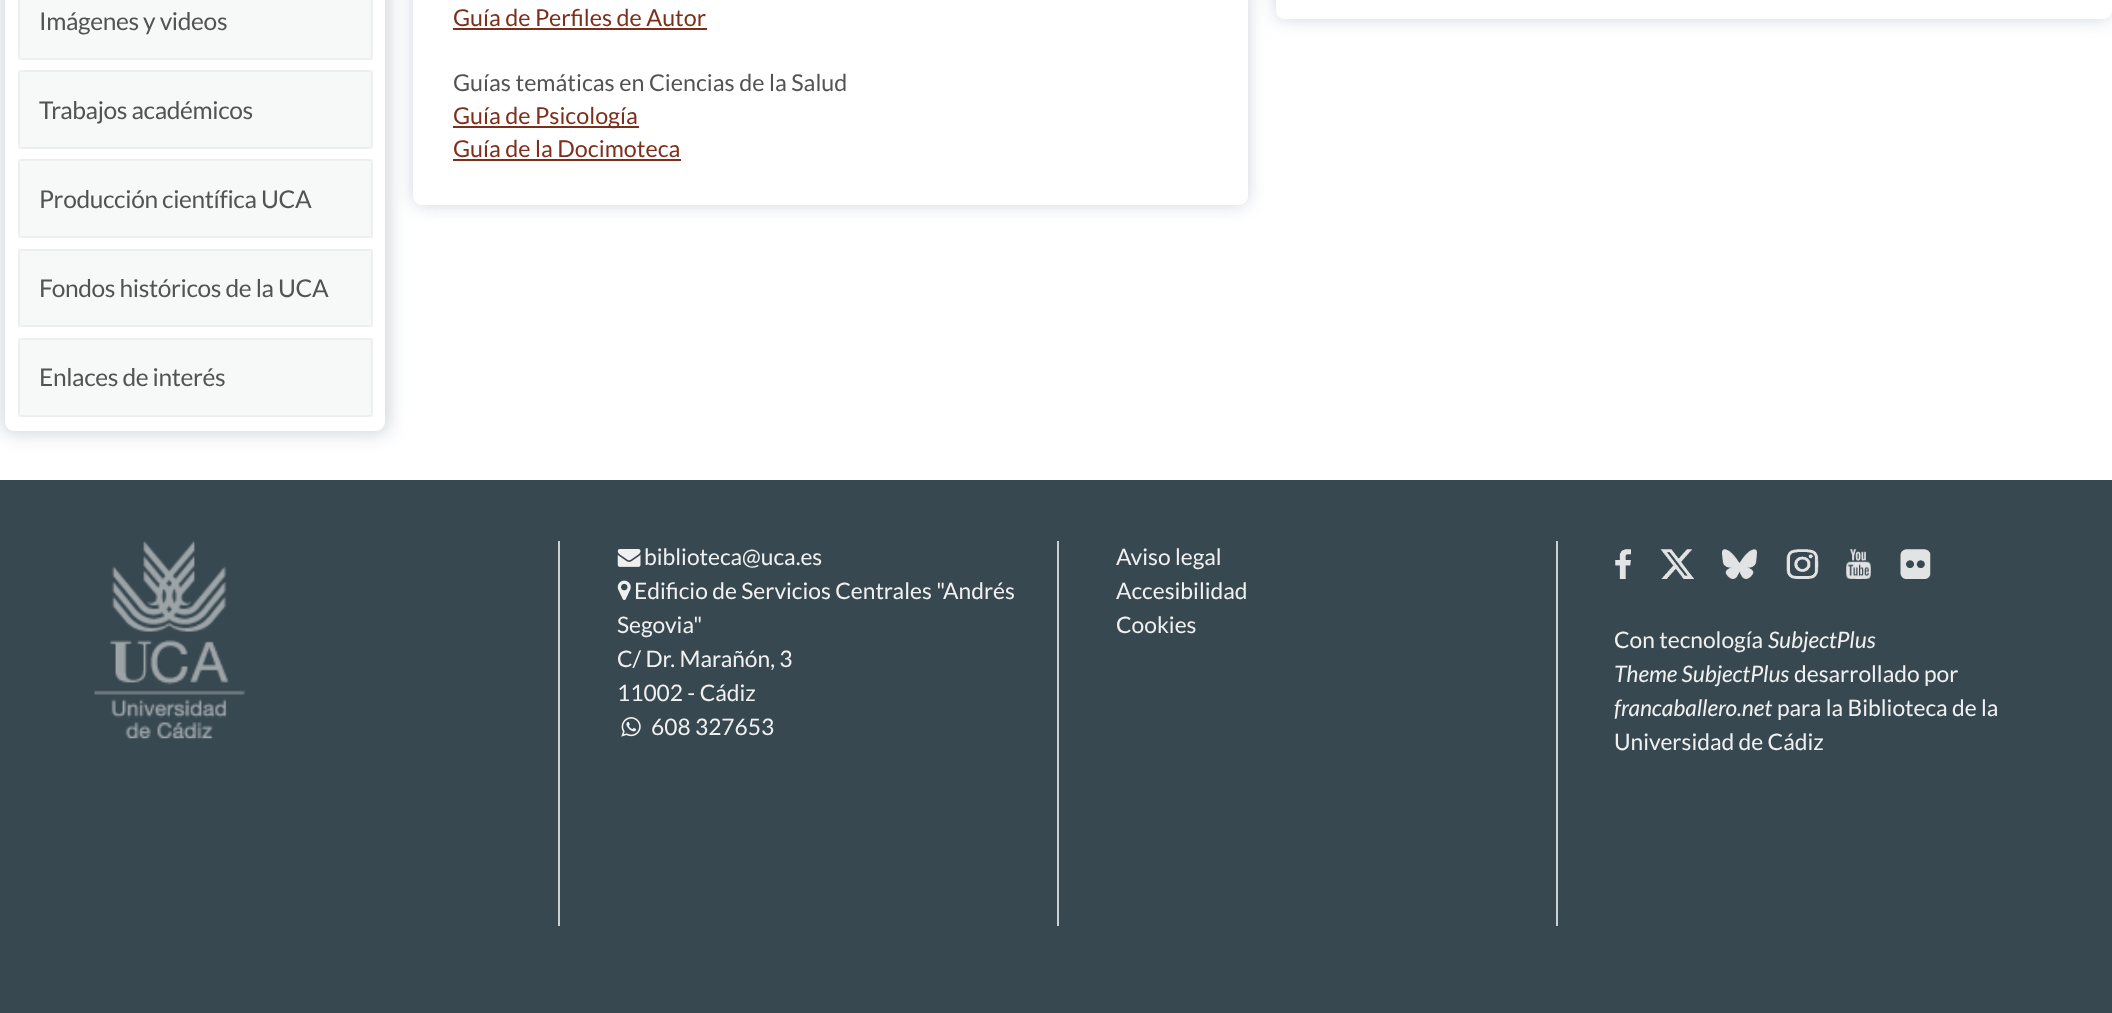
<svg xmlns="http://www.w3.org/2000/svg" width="2112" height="1013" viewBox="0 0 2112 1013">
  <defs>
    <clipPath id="clip1"><path d="M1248 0H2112V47H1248ZM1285-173H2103C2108-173 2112-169 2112-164V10C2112 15 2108 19 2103 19H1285C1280 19 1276 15 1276 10V-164C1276-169 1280-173 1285-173Z" clip-rule="evenodd"/></clipPath>
  </defs>
  <rect width="100%" height="100%" fill="#fff"/>
  <rect x="413" y="-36" width="835" height="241" rx="9" fill="#cfd7dd" filter="blur(9px)"/>
  <rect x="413" y="-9" width="835" height="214" rx="9" fill="#fff"/>
  <rect x="2" y="-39" width="387" height="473" rx="12" fill="#cfd7dd" filter="blur(9px)"/>
  <rect x="5" y="-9" width="380" height="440" rx="9" fill="#fff"/>
  <rect x="18" y="-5" width="355" height="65" rx="5" fill="#b1b9bf1a"/>
  <path d="M19 -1h353v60H19z" fill="none" stroke="#0000000a" stroke-width="2"/>
  <rect x="18" y="70" width="355" height="79" rx="5" fill="#b1b9bf1a"/>
  <path d="M19 71h353v77H19z" fill="none" stroke="#0000000a" stroke-width="2"/>
  <rect x="18" y="159" width="355" height="79" rx="5" fill="#b1b9bf1a"/>
  <path d="M19 160h353v77H19z" fill="none" stroke="#0000000a" stroke-width="2"/>
  <rect x="18" y="249" width="355" height="78" rx="5" fill="#b1b9bf1a"/>
  <path d="M19 250h353v76H19z" fill="none" stroke="#0000000a" stroke-width="2"/>
  <rect x="18" y="338" width="355" height="79" rx="5" fill="#b1b9bf1a"/>
  <path d="M19 339h353v77H19z" fill="none" stroke="#0000000a" stroke-width="2"/>
  <path d="M453 28h254v2H453z" fill="#7d2f1b"/>
  <path d="M453 126h186v2H453z" fill="#7d2f1b"/>
  <path d="M453 159h228v2H453z" fill="#7d2f1b"/>
  <g clip-path="url(#clip1)">
    <rect x="1276" y="-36" width="836" height="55" rx="9" fill="#cfd7dd" filter="blur(9px)"/>
  </g>
  <path d="M0 480h2112v533H0z" fill="#384850"/>
  <image x="94" y="540" width="151" height="199" href="img/1.png"/>
  <path d="M558 541h2v385H558z" fill="#cad1d4"/>
  <image x="617" y="549" width="24" height="18" href="img/2.png"/>
  <image x="617" y="580" width="14" height="21" href="img/3.png"/>
  <image x="621" y="717" width="20" height="20" href="img/4.png"/>
  <path d="M1057 541h2v385H1057z" fill="#cad1d4"/>
  <path d="M1556 541h2v385H1556z" fill="#cad1d4"/>
  <image x="1615" y="549" width="16" height="30" href="img/5.png"/>
  <image x="1660" y="549" width="34" height="30" href="img/6.png"/>
  <image x="1722" y="549" width="35" height="30" href="img/7.png"/>
  <image x="1786" y="549" width="33" height="30" href="img/8.png"/>
  <image x="1846" y="549" width="25" height="30" href="img/9.png"/>
  <image x="1900" y="549" width="31" height="30" href="img/10.png"/>
  <g font-family="Lato" font-size="24.5" letter-spacing="-0.35" fill="#535353">
    <text x="39" y="30">Imágenes y videos</text>
    <text x="39" y="119">Trabajos académicos</text>
    <text x="39" y="208">Producción científica UCA</text>
    <text x="39" y="297">Fondos históricos de la UCA</text>
    <text x="39" y="386">Enlaces de interés</text>
  </g>
  <text x="453" y="26" font-family="Lato" font-size="23.3" fill="#7d2f1b">Guía de Perfiles de Autor</text>
  <text x="453" y="91" font-family="Lato" font-size="23.3" fill="#535353">Guías temáticas en Ciencias de la Salud</text>
  <g font-family="Lato" font-size="23.3" fill="#7d2f1b">
    <text x="453" y="124">Guía de Psicología</text>
    <text x="453" y="157">Guía de la Docimoteca</text>
  </g>
  <g font-family="Lato" font-size="22.75" fill="#f0f0f0">
    <text x="644" y="565">biblioteca@uca.es</text>
    <text x="634" y="599">Edificio de Servicios Centrales "Andrés</text>
    <text x="617" y="633">Segovia"</text>
    <text x="617" y="667">C/ Dr. Marañón, 3</text>
    <text x="617" y="701">11002 - Cádiz</text>
    <text x="651" y="735">608 327653</text>
    <text x="1116" y="565">Aviso legal</text>
    <text x="1116" y="599">Accesibilidad</text>
    <text x="1116" y="633">Cookies</text>
    <text x="1614" y="648">Con tecnología</text>
  </g>
  <g font-family="Lato" font-size="22.75" font-style="italic" fill="#f0f0f0">
    <text x="1768" y="648">SubjectPlus</text>
    <text x="1614" y="682">Theme SubjectPlus</text>
  </g>
  <text x="1794" y="682" font-family="Lato" font-size="22.75" fill="#f0f0f0">desarrollado por</text>
  <text x="1614" y="716" font-family="Lato" font-size="22.75" font-style="italic" fill="#f0f0f0">francaballero.net</text>
  <g font-family="Lato" font-size="22.75" fill="#f0f0f0">
    <text x="1777" y="716">para la Biblioteca de la</text>
    <text x="1614" y="750">Universidad de Cádiz</text>
  </g>
</svg>
